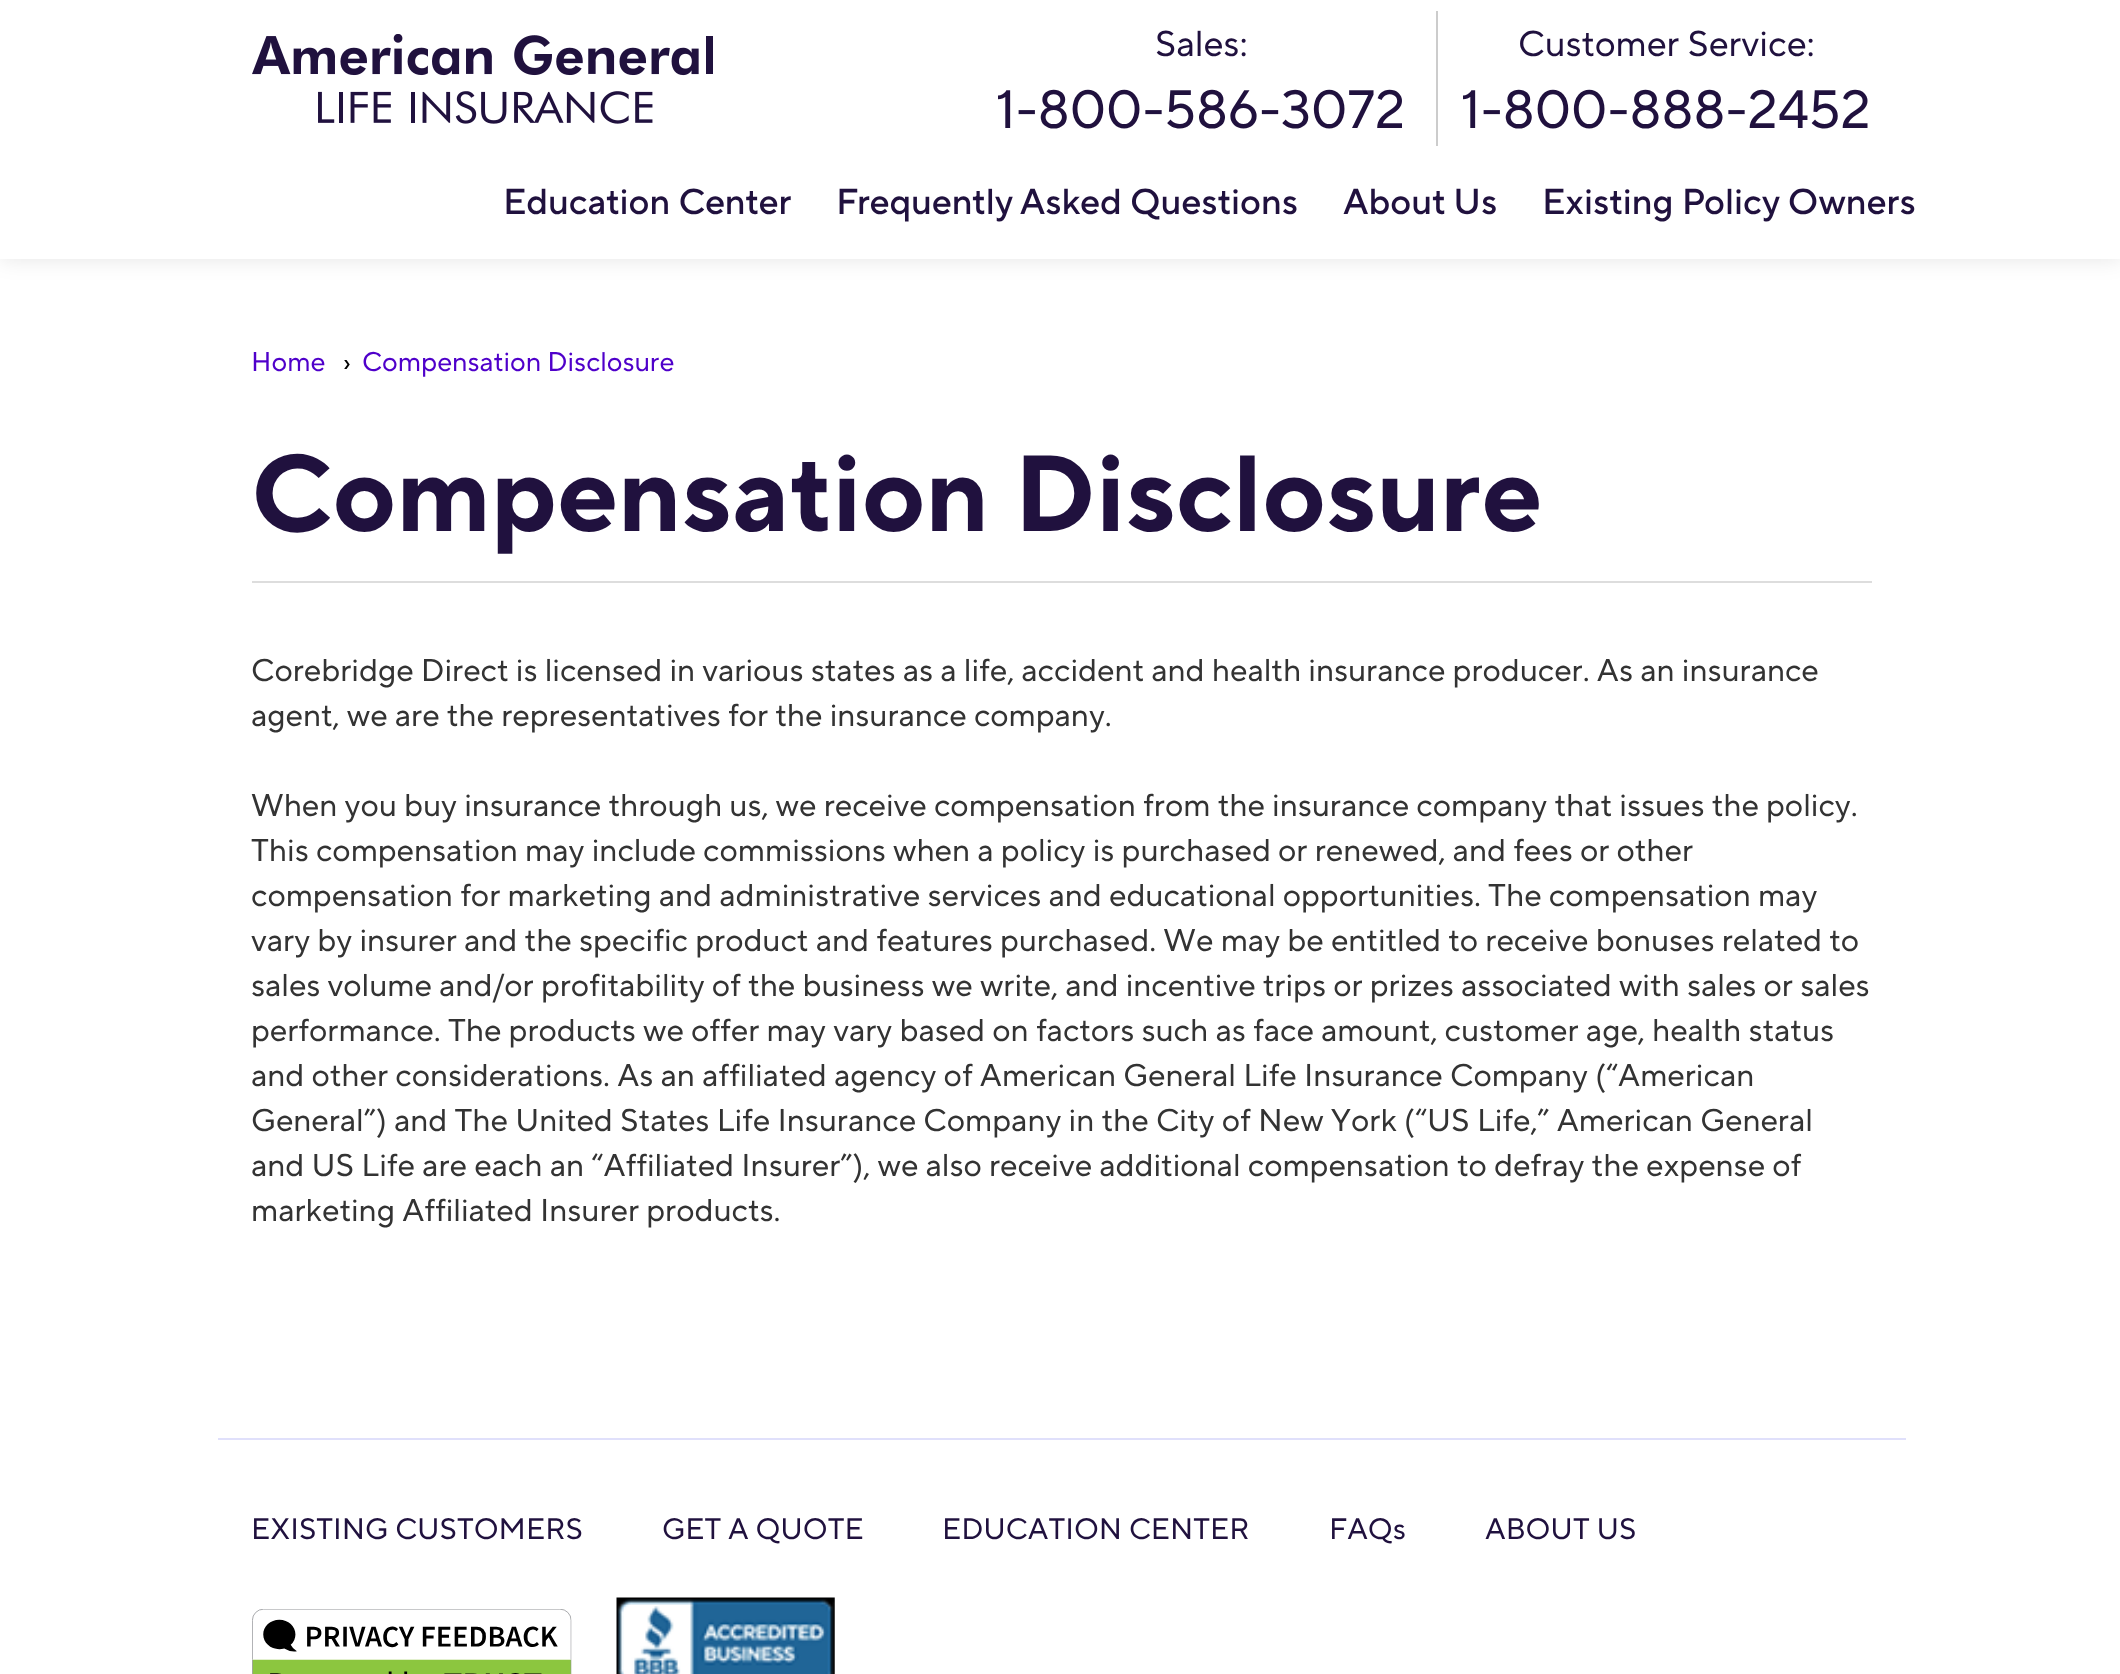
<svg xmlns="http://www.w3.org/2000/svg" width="2120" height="1674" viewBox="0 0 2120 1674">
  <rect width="100%" height="100%" fill="#fff"/>
  <path d="M0 0h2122v259H0z" fill="#0000001a" filter="blur(11px)"/>
  <path d="M0 0h2120v259H0z" fill="#fff"/>
  <image x="252" y="34" width="461" height="90" href="img/1.png"/>
  <path d="M1436 11h2v135H1436z" fill="#ccc"/>
  <path d="M252 581h1620v2H252z" fill="#ddd"/>
  <path d="M218 1438h1688v2H218z" fill="#e0e0fb"/>
  <image x="252" y="1609" width="320" height="65" href="img/2.png"/>
  <image x="616" y="1597" width="219" height="77" href="img/3.png"/>
  <text x="1155" y="56" font-family="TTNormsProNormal" font-size="36" fill="#20113e">Sales:</text>
  <text x="996" y="128" font-family="TTNormsProNormal" font-size="54" fill="#20113e">1-800-586-3072</text>
  <text x="1518" y="56" font-family="TTNormsProNormal" font-size="36" fill="#20113e">Customer Service:</text>
  <text x="1461" y="128" font-family="TTNormsProNormal" font-size="54" fill="#20113e">1-800-888-2452</text>
  <g font-family="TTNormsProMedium" font-size="36" font-weight="500" fill="#20113e">
    <text x="503" y="214">Education Center</text>
    <text x="836" y="214">Frequently Asked Questions</text>
    <text x="1343" y="214">About Us</text>
    <text x="1542" y="214">Existing Policy Owners</text>
  </g>
  <text x="251" y="371" font-family="TTNormsProNormal" font-size="27" fill="#4f00ca">Home</text>
  <text x="343" y="371" font-family="TTNormsProNormal" font-size="27" fill="#010101">›</text>
  <text x="362" y="371" font-family="TTNormsProNormal" font-size="27" fill="#4f00ca">Compensation Disclosure</text>
  <text x="251" y="531" font-family="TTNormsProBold" font-size="108" font-weight="bold" fill="#20113e">Compensation Disclosure</text>
  <g font-family="TTNormsProNormal" font-size="31.5" fill="#333">
    <text x="251" y="681">Corebridge Direct is licensed in various states as a life, accident and health insurance producer. As an insurance</text>
    <text x="251" y="726">agent, we are the representatives for the insurance company.</text>
    <text x="251" y="816">When you buy insurance through us, we receive compensation from the insurance company that issues the policy.</text>
    <text x="251" y="861">This compensation may include commissions when a policy is purchased or renewed, and fees or other</text>
    <text x="251" y="906">compensation for marketing and administrative services and educational opportunities. The compensation may</text>
    <text x="251" y="951">vary by insurer and the specific product and features purchased. We may be entitled to receive bonuses related to</text>
    <text x="251" y="996">sales volume and/or profitability of the business we write, and incentive trips or prizes associated with sales or sales</text>
    <text x="251" y="1041">performance. The products we offer may vary based on factors such as face amount, customer age, health status</text>
    <text x="251" y="1086">and other considerations. As an affiliated agency of American General Life Insurance Company (“American</text>
    <text x="251" y="1131">General”) and The United States Life Insurance Company in the City of New York (“US Life,” American General</text>
    <text x="251" y="1176">and US Life are each an “Affiliated Insurer”), we also receive additional compensation to defray the expense of</text>
    <text x="251" y="1221">marketing Affiliated Insurer products.</text>
  </g>
  <g font-family="TTNormsProNormal" font-size="29.5" fill="#20113e">
    <text x="251" y="1539">EXISTING CUSTOMERS</text>
    <text x="662" y="1539">GET A QUOTE</text>
    <text x="942" y="1539">EDUCATION CENTER</text>
    <text x="1329" y="1539">FAQs</text>
    <text x="1485" y="1539">ABOUT US</text>
  </g>
</svg>
